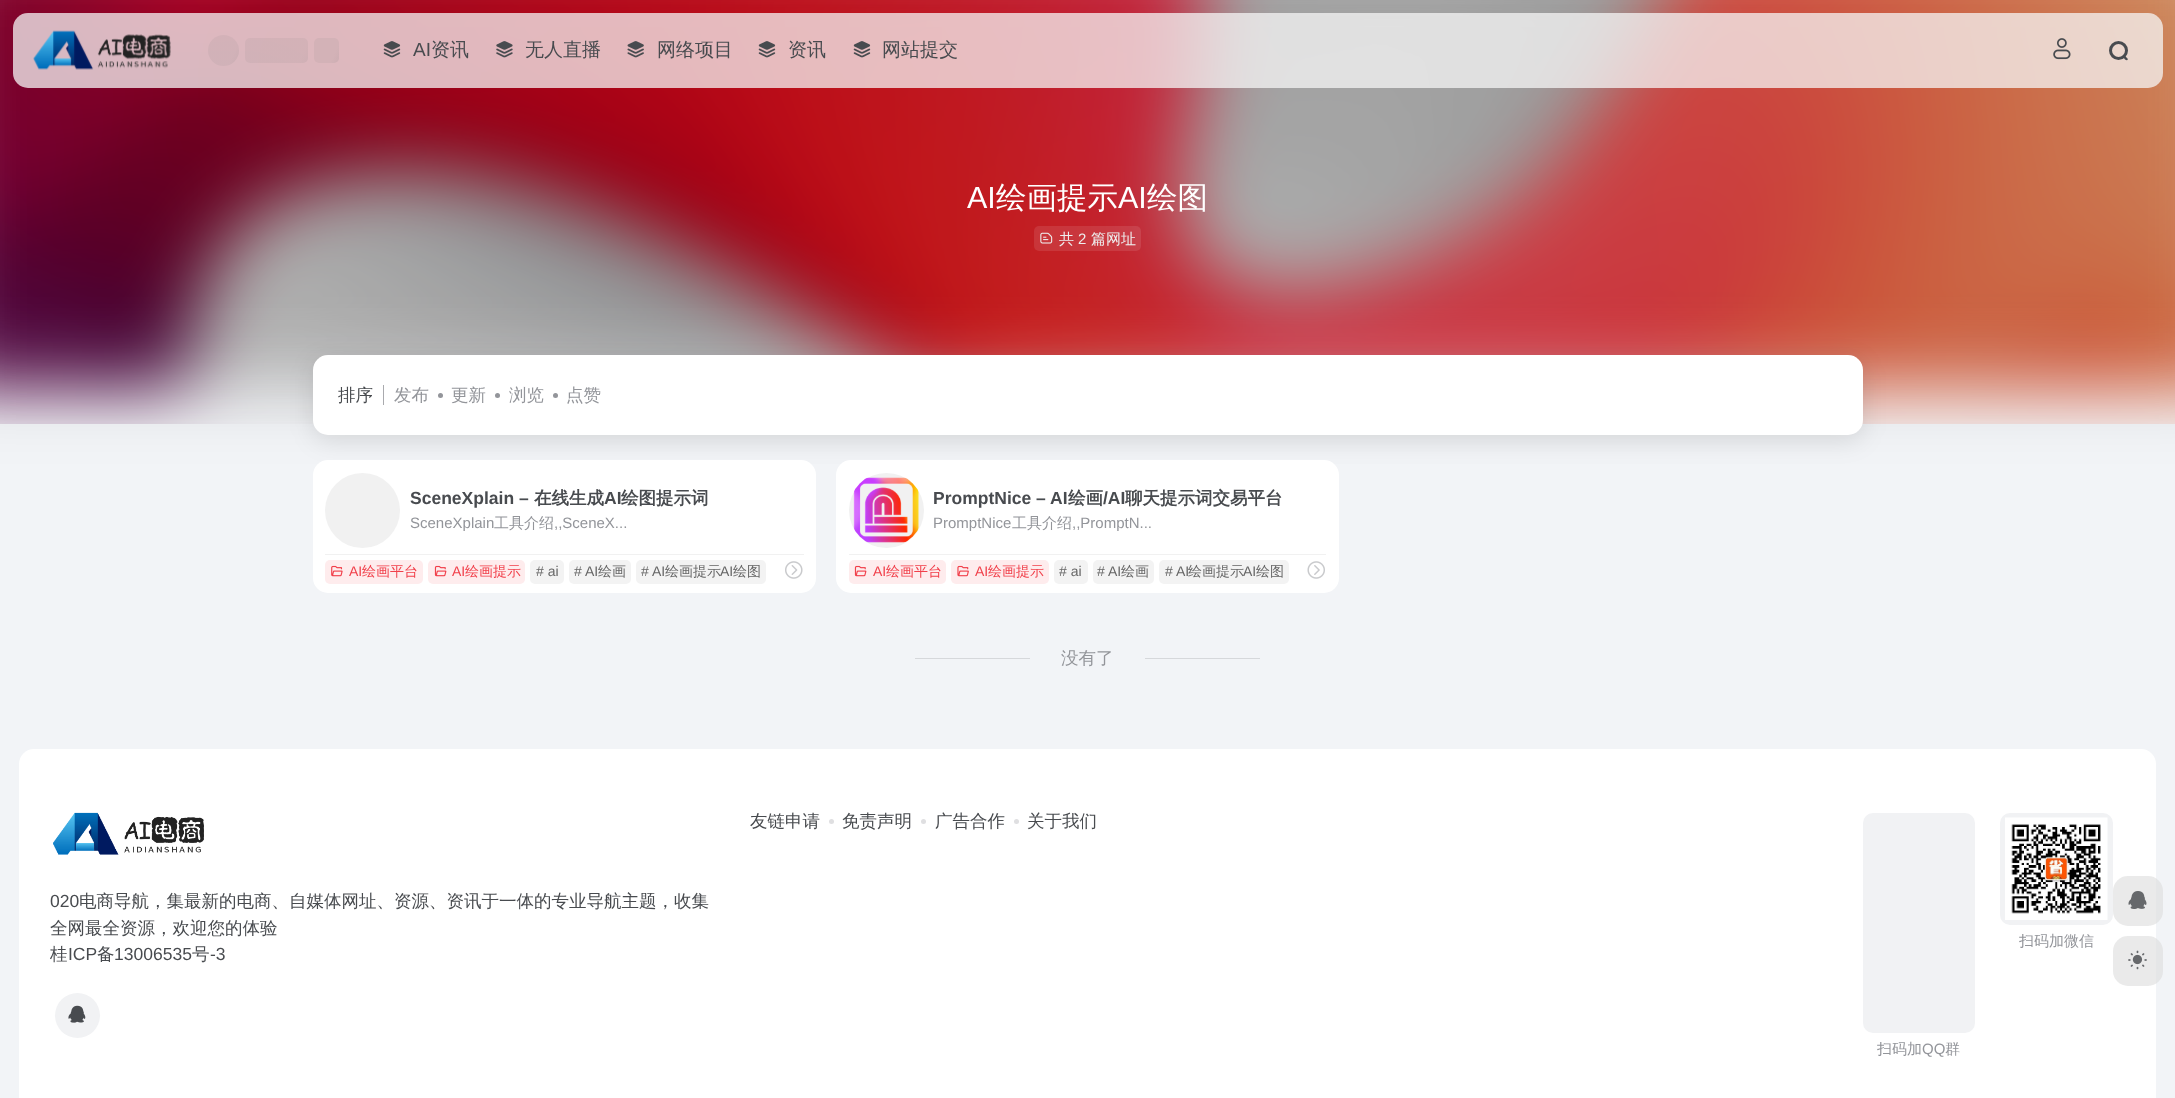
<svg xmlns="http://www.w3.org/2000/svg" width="2175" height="1098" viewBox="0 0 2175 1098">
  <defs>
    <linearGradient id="g1" gradientUnits="userSpaceOnUse" x1="213" y1="24" x2="327" y2="77"><stop offset="0.25" stop-color="#797979" stop-opacity="0.1"/><stop offset="0.37" stop-color="#797979" stop-opacity="0.2"/><stop offset="0.63" stop-color="#797979" stop-opacity="0.1"/></linearGradient>
    <linearGradient id="g2" gradientUnits="userSpaceOnUse" x1="263" y1="-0.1" x2="477" y2="100"><stop offset="0.25" stop-color="#797979" stop-opacity="0.1"/><stop offset="0.37" stop-color="#797979" stop-opacity="0.2"/><stop offset="0.63" stop-color="#797979" stop-opacity="0.1"/></linearGradient>
    <linearGradient id="g3" gradientUnits="userSpaceOnUse" x1="318" y1="29" x2="410" y2="71"><stop offset="0.25" stop-color="#d3b2b7"/><stop offset="0.37" stop-color="#c9abb0"/><stop offset="0.63" stop-color="#d3b2b7"/></linearGradient>
  </defs>
  <rect width="100%" height="100%" fill="#f2f4f7"/>
  <image x="0" y="0" width="2175" height="424" href="img/8.png"/>
  <path d="M-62 -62h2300v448H-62z" fill="#00000033" filter="blur(37.5px)"/>
  <rect x="13" y="13" width="2150" height="75" rx="15" fill="#f5f5f5bf"/>
  <image x="33" y="30" width="138" height="40" href="img/1.png"/>
  <circle cx="223.5" cy="50.5" r="15.5" fill="url(#g1)"/>
  <rect x="245" y="38" width="63" height="25" rx="5" fill="url(#g2)"/>
  <rect x="314" y="38" width="25" height="25" rx="5" fill="url(#g3)"/>
  <image x="383" y="41" width="18" height="17" href="img/2.png"/>
  <image x="496" y="41" width="17" height="17" href="img/3.png"/>
  <image x="627" y="41" width="17" height="17" href="img/4.png"/>
  <image x="758" y="41" width="18" height="17" href="img/5.png"/>
  <image x="853" y="41" width="18" height="17" href="img/6.png"/>
  <image x="2053" y="38" width="18" height="22" href="img/7.png"/>
  <circle cx="2118.5" cy="50.5" r="8" fill="none" stroke="#484b4f" stroke-width="3"/>
  <path d="M2125.5 56.5L2127.5 58.5C2128.5 60.5 2126.5 60.5 2125 59.5L2123.5 57.5C2123 56.5 2124.5 55.5 2125.5 56.5Z" fill="#484b4f"/>
  <rect x="1034" y="226" width="107" height="25" rx="5" fill="#ffffff1a"/>
  <image x="1040" y="232" width="13" height="12" href="img/9.png"/>
  <rect x="313" y="361" width="1550" height="80" rx="15" fill="#0000001a" filter="blur(12.5px)"/>
  <rect x="313" y="355" width="1550" height="80" rx="15" fill="#fff"/>
  <path d="M383 385h1v20H383z" fill="#a9aaae"/>
  <circle cx="440.5" cy="395.5" r="2.5" fill="#93959a"/>
  <circle cx="497.5" cy="395.5" r="2.5" fill="#93959a"/>
  <circle cx="555.5" cy="395.5" r="2.5" fill="#93959a"/>
  <rect x="313" y="460" width="503" height="133" rx="15" fill="#fff"/>
  <circle cx="362.5" cy="510.5" r="37.5" fill="#f1f1f1"/>
  <path d="M325 554h479v1H325z" fill="#f1f1f1"/>
  <rect x="325" y="560" width="98" height="24" rx="5" fill="#feeced"/>
  <image x="331" y="565" width="12" height="12" href="img/10.png"/>
  <rect x="428" y="560" width="97" height="24" rx="5" fill="#feeced"/>
  <image x="434" y="565" width="13" height="12" href="img/11.png"/>
  <rect x="530" y="560" width="34" height="24" rx="5" fill="#f3f3f3"/>
  <rect x="569" y="560" width="62" height="24" rx="5" fill="#f3f3f3"/>
  <rect x="636" y="560" width="130" height="24" rx="5" fill="#f3f3f3"/>
  <image x="785" y="561" width="18" height="18" href="img/12.png"/>
  <rect x="836" y="460" width="503" height="133" rx="15" fill="#fff"/>
  <circle cx="886.5" cy="510.5" r="37.5" fill="#f1f1f1"/>
  <image x="853" y="477" width="66" height="66" href="img/13.png"/>
  <path d="M849 554h477v1H849z" fill="#f1f1f1"/>
  <rect x="849" y="560" width="97" height="24" rx="5" fill="#feeced"/>
  <image x="854" y="565" width="13" height="12" href="img/11.png"/>
  <rect x="951" y="560" width="98" height="24" rx="5" fill="#feeced"/>
  <image x="957" y="565" width="12" height="12" href="img/14.png"/>
  <rect x="1054" y="560" width="34" height="24" rx="5" fill="#f3f3f3"/>
  <rect x="1093" y="560" width="61" height="24" rx="5" fill="#f3f3f3"/>
  <rect x="1159" y="560" width="130" height="24" rx="5" fill="#f3f3f3"/>
  <image x="1307" y="561" width="18" height="18" href="img/15.png"/>
  <path d="M915 658h115v1H915z" fill="#d6d8db"/>
  <path d="M1145 658h115v1H1145z" fill="#d6d8db"/>
  <rect x="19" y="749" width="2137" height="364" rx="15" fill="#fff"/>
  <circle cx="831.5" cy="821.5" r="2.5" fill="#dfdfe1"/>
  <circle cx="923.5" cy="821.5" r="2.5" fill="#dfdfe1"/>
  <circle cx="1016.5" cy="821.5" r="2.5" fill="#dfdfe1"/>
  <image x="53" y="812" width="151" height="43" href="img/16.png"/>
  <circle cx="77.5" cy="1015.5" r="22.5" fill="#f1f2f4"/>
  <image x="68" y="1005" width="18" height="18" href="img/17.png"/>
  <rect x="2000" y="813" width="113" height="112" rx="10" fill="#f1f2f4"/>
  <image x="2005" y="817" width="103" height="103" href="img/18.png"/>
  <rect x="1863" y="813" width="112" height="220" rx="10" fill="#f1f2f4"/>
  <rect x="2113" y="876" width="50" height="50" rx="15" fill="#dcdcdc99"/>
  <image x="2128" y="891" width="19" height="18" href="img/19.png"/>
  <rect x="2113" y="936" width="50" height="50" rx="15" fill="#dcdcdc99"/>
  <image x="2128" y="950" width="19" height="20" href="img/20.png"/>
  <text x="413" y="56" font-family="Liberation Sans" font-size="19" fill="#484b4f">AI</text>
  <g font-family="WenQuanYi Zen Hei" font-size="19" font-weight="500" fill="#484b4f">
    <text x="431" y="56">资讯</text>
    <text x="525" y="56">无人直播</text>
    <text x="657" y="56">网络项目</text>
    <text x="788" y="56">资讯</text>
    <text x="882" y="56">网站提交</text>
  </g>
  <text x="967" y="208" font-family="Liberation Sans" font-size="30.5" fill="#fff">AI</text>
  <text x="996" y="208" font-family="WenQuanYi Zen Hei" font-size="30.5" font-weight="500" fill="#fff">绘画提示</text>
  <text x="1118" y="208" font-family="Liberation Sans" font-size="30.5" fill="#fff">AI</text>
  <text x="1147" y="208" font-family="WenQuanYi Zen Hei" font-size="30.5" font-weight="500" fill="#fff">绘图</text>
  <text x="1059" y="244" font-family="WenQuanYi Zen Hei" font-size="15" font-weight="500" fill="#eee">共</text>
  <text x="1078" y="244" font-family="Liberation Sans" font-size="15" fill="#eee">2</text>
  <text x="1091" y="244" font-family="WenQuanYi Zen Hei" font-size="15" font-weight="500" fill="#eee">篇网址</text>
  <text x="338" y="401" font-family="WenQuanYi Zen Hei" font-size="17.5" font-weight="500" fill="#484b4f">排序</text>
  <g font-family="WenQuanYi Zen Hei" font-size="17.5" font-weight="500" fill="#93959a">
    <text x="394" y="401">发布</text>
    <text x="451" y="401">更新</text>
    <text x="509" y="401">浏览</text>
    <text x="566" y="401">点赞</text>
  </g>
  <text x="410" y="504" font-family="Liberation Sans" font-size="17.5" font-weight="bold" fill="#484b4f">SceneXplain –</text>
  <text x="534" y="504" font-family="WenQuanYi Zen Hei" font-size="17.5" font-weight="bold" fill="#484b4f">在线生成</text>
  <text x="604" y="504" font-family="Liberation Sans" font-size="17.5" font-weight="bold" fill="#484b4f">AI</text>
  <text x="621" y="504" font-family="WenQuanYi Zen Hei" font-size="17.5" font-weight="bold" fill="#484b4f">绘图提示词</text>
  <text x="410" y="528" font-family="Liberation Sans" font-size="15" fill="#93959a">SceneXplain</text>
  <text x="494" y="528" font-family="WenQuanYi Zen Hei" font-size="15" font-weight="500" fill="#93959a">工具介绍</text>
  <text x="554" y="528" font-family="Liberation Sans" font-size="15" fill="#93959a">,,SceneX...</text>
  <text x="349" y="576" font-family="Liberation Sans" font-size="14" fill="#f1404b">AI</text>
  <text x="362" y="576" font-family="WenQuanYi Zen Hei" font-size="14" font-weight="500" fill="#f1404b">绘画平台</text>
  <text x="452" y="576" font-family="Liberation Sans" font-size="14" fill="#f1404b">AI</text>
  <text x="465" y="576" font-family="WenQuanYi Zen Hei" font-size="14" font-weight="500" fill="#f1404b">绘画提示</text>
  <g font-family="Liberation Sans" font-size="14" fill="#666">
    <text x="536" y="576"># ai</text>
    <text x="574" y="576"># AI</text>
  </g>
  <text x="598" y="576" font-family="WenQuanYi Zen Hei" font-size="14" font-weight="500" fill="#666">绘画</text>
  <text x="641" y="576" font-family="Liberation Sans" font-size="14" fill="#666"># AI</text>
  <text x="665" y="576" font-family="WenQuanYi Zen Hei" font-size="14" font-weight="500" fill="#666">绘画提示</text>
  <text x="720" y="576" font-family="Liberation Sans" font-size="14" fill="#666">AI</text>
  <text x="733" y="576" font-family="WenQuanYi Zen Hei" font-size="14" font-weight="500" fill="#666">绘图</text>
  <text x="933" y="504" font-family="Liberation Sans" font-size="17.5" font-weight="bold" fill="#484b4f">PromptNice – AI</text>
  <text x="1068" y="504" font-family="WenQuanYi Zen Hei" font-size="17.5" font-weight="bold" fill="#484b4f">绘画</text>
  <text x="1103" y="504" font-family="Liberation Sans" font-size="17.5" font-weight="bold" fill="#484b4f">/AI</text>
  <text x="1125" y="504" font-family="WenQuanYi Zen Hei" font-size="17.5" font-weight="bold" fill="#484b4f">聊天提示词交易平台</text>
  <text x="933" y="528" font-family="Liberation Sans" font-size="15" fill="#93959a">PromptNice</text>
  <text x="1012" y="528" font-family="WenQuanYi Zen Hei" font-size="15" font-weight="500" fill="#93959a">工具介绍</text>
  <text x="1072" y="528" font-family="Liberation Sans" font-size="15" fill="#93959a">,,PromptN...</text>
  <text x="873" y="576" font-family="Liberation Sans" font-size="14" fill="#f1404b">AI</text>
  <text x="886" y="576" font-family="WenQuanYi Zen Hei" font-size="14" font-weight="500" fill="#f1404b">绘画平台</text>
  <text x="975" y="576" font-family="Liberation Sans" font-size="14" fill="#f1404b">AI</text>
  <text x="988" y="576" font-family="WenQuanYi Zen Hei" font-size="14" font-weight="500" fill="#f1404b">绘画提示</text>
  <g font-family="Liberation Sans" font-size="14" fill="#666">
    <text x="1059" y="576"># ai</text>
    <text x="1097" y="576"># AI</text>
  </g>
  <text x="1121" y="576" font-family="WenQuanYi Zen Hei" font-size="14" font-weight="500" fill="#666">绘画</text>
  <text x="1165" y="576" font-family="Liberation Sans" font-size="14" fill="#666"># AI</text>
  <text x="1188" y="576" font-family="WenQuanYi Zen Hei" font-size="14" font-weight="500" fill="#666">绘画提示</text>
  <text x="1243" y="576" font-family="Liberation Sans" font-size="14" fill="#666">AI</text>
  <text x="1256" y="576" font-family="WenQuanYi Zen Hei" font-size="14" font-weight="500" fill="#666">绘图</text>
  <text x="1061" y="664" font-family="WenQuanYi Zen Hei" font-size="17.5" font-weight="500" fill="#93959a">没有了</text>
  <g font-family="WenQuanYi Zen Hei" font-size="17.5" font-weight="500" fill="#484b4f">
    <text x="750" y="827">友链申请</text>
    <text x="842" y="827">免责声明</text>
    <text x="935" y="827">广告合作</text>
    <text x="1027" y="827">关于我们</text>
  </g>
  <text x="50" y="907" font-family="Liberation Sans" font-size="17.5" fill="#484b4f">020</text>
  <g font-family="WenQuanYi Zen Hei" font-size="17.5" font-weight="500" fill="#484b4f">
    <text x="79" y="907">电商导航，集最新的电商、自媒体网址、资源、资讯于一体的专业导航主题，收集</text>
    <text x="50" y="934">全网最全资源，欢迎您的体验</text>
    <text x="50" y="960">桂</text>
  </g>
  <text x="68" y="960" font-family="Liberation Sans" font-size="17.5" fill="#484b4f">ICP</text>
  <text x="97" y="960" font-family="WenQuanYi Zen Hei" font-size="17.5" font-weight="500" fill="#484b4f">备</text>
  <text x="114" y="960" font-family="Liberation Sans" font-size="17.5" fill="#484b4f">13006535</text>
  <text x="192" y="960" font-family="WenQuanYi Zen Hei" font-size="17.5" font-weight="500" fill="#484b4f">号</text>
  <text x="210" y="960" font-family="Liberation Sans" font-size="17.5" fill="#484b4f">-3</text>
  <g font-family="WenQuanYi Zen Hei" font-size="15" font-weight="500" fill="#93959a">
    <text x="2019" y="946">扫码加微信</text>
    <text x="1877" y="1054">扫码加</text>
  </g>
  <text x="1922" y="1054" font-family="Liberation Sans" font-size="15" fill="#93959a">QQ</text>
  <text x="1945" y="1054" font-family="WenQuanYi Zen Hei" font-size="15" font-weight="500" fill="#93959a">群</text>
</svg>
